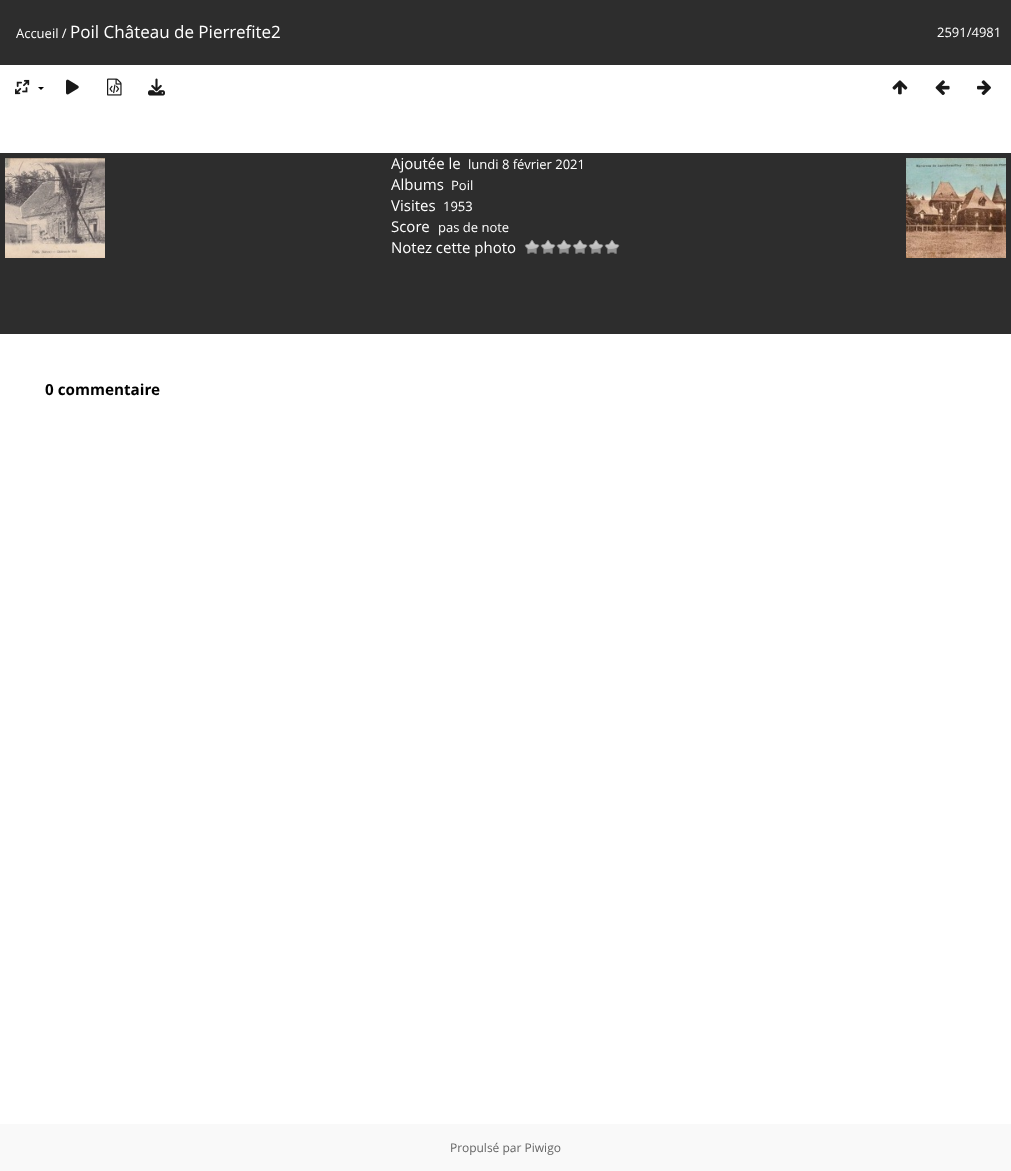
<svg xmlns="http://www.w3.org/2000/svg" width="1011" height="1171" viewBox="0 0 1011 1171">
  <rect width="100%" height="100%" fill="#fff"/>
  <path d="M0 0h1011v65H0z" fill="#2d2d2d"/>
  <image x="15" y="79" width="15" height="16" href="img/1.png"/>
  <path d="M38 87H44L41 90Z" fill="#000"/>
  <image x="66" y="79" width="13" height="16" href="img/2.png"/>
  <image x="107" y="78" width="15" height="18" href="img/3.png"/>
  <image x="148" y="78" width="17" height="18" href="img/4.png"/>
  <image x="892" y="80" width="16" height="15" href="img/5.png"/>
  <image x="935" y="80" width="15" height="15" href="img/6.png"/>
  <image x="977" y="80" width="14" height="15" href="img/7.png"/>
  <path d="M0 153h1011v181H0z" fill="#2d2d2d"/>
  <image x="524" y="240" width="16" height="14" href="img/8.png"/>
  <image x="540" y="240" width="16" height="14" href="img/8.png"/>
  <image x="556" y="240" width="16" height="14" href="img/8.png"/>
  <image x="572" y="240" width="16" height="14" href="img/8.png"/>
  <image x="588" y="240" width="16" height="14" href="img/8.png"/>
  <image x="604" y="240" width="16" height="14" href="img/8.png"/>
  <image x="5" y="158" width="100" height="100" href="img/9.png"/>
  <image x="906" y="158" width="100" height="100" href="img/10.png"/>
  <path d="M0 1124h1011v47H0z" fill="#f9f9f9"/>
  <text x="16" y="38" font-family="Open Sans" font-size="13" fill="#fff">Accueil /</text>
  <text x="70" y="38" font-family="Open Sans" font-size="17" fill="#fff">Poil Château de Pierrefite2</text>
  <text x="937" y="37" font-family="Open Sans" font-size="13" fill="#fff">2591/4981</text>
  <text x="391" y="169" font-family="Open Sans" font-size="15" fill="#fff">Ajoutée le</text>
  <text x="468" y="169" font-family="Open Sans" font-size="13" fill="#fff">lundi 8 février 2021</text>
  <text x="391" y="190" font-family="Open Sans" font-size="15" fill="#fff">Albums</text>
  <text x="451" y="190" font-family="Open Sans" font-size="13" fill="#fff">Poil</text>
  <text x="391" y="211" font-family="Open Sans" font-size="15" fill="#fff">Visites</text>
  <text x="443" y="211" font-family="Open Sans" font-size="13" fill="#fff">1953</text>
  <text x="391" y="232" font-family="Open Sans" font-size="15" fill="#fff">Score</text>
  <text x="438" y="232" font-family="Open Sans" font-size="13" fill="#fff">pas de note</text>
  <text x="391" y="253" font-family="Open Sans" font-size="15" fill="#fff">Notez cette photo</text>
  <text x="45" y="395" font-family="Open Sans" font-size="15.25" font-weight="bold" fill="#000">0 commentaire</text>
  <text x="450" y="1152" font-family="Open Sans" font-size="12" fill="#666">Propulsé par Piwigo</text>
</svg>
